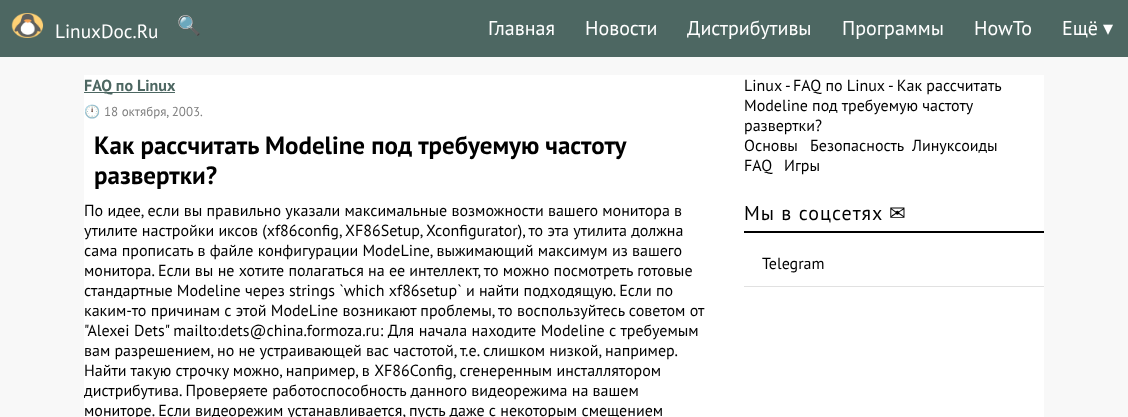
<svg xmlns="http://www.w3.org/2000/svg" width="1128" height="417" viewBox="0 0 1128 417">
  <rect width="100%" height="100%" fill="#f8f8f8"/>
  <path d="M0 0h1128v57H0z" fill="#4d6762"/>
  <image x="11" y="13" width="33" height="25" href="img/1.png"/>
  <path d="M84 75h960v342H84z" fill="#fff"/>
  <path d="M84 92h91v1H84z" fill="#4d6762"/>
  <path d="M744 231h300v2H744z" fill="#000"/>
  <path d="M744 286h300v1H744z" fill="#e1e1e1"/>
  <text x="55" y="38" font-family="PT Sans" font-size="19.25" fill="#fff">LinuxDoc.Ru</text>
  <text x="177" y="32" font-family="Noto Color Emoji" font-size="19.25" fill="#fff">🔍</text>
  <g font-family="PT Sans" font-size="20" fill="#fff">
    <text x="488" y="35">Главная</text>
    <text x="585" y="35">Новости</text>
    <text x="687" y="35">Дистрибутивы</text>
    <text x="842" y="35">Программы</text>
    <text x="974" y="35">HowTo</text>
    <text x="1062" y="35">Ещё</text>
  </g>
  <text x="1103" y="35" font-family="DejaVu Sans" font-size="20" fill="#fff">▾</text>
  <text x="84" y="91" font-family="PT Sans" font-size="16" font-weight="bold" fill="#4d6762">FAQ по Linux</text>
  <text x="84" y="116" font-family="Noto Color Emoji" font-size="13" fill="#818181">🕛</text>
  <text x="104" y="116" font-family="PT Sans" font-size="13" fill="#818181">18 октября, 2003.</text>
  <g font-family="PT Sans" font-size="25" font-weight="bold" fill="#000">
    <text x="94" y="154">Как рассчитать Modeline под требуемую частоту</text>
    <text x="94" y="184">развертки?</text>
  </g>
  <g font-family="PT Sans" font-size="16" fill="#000">
    <text x="84" y="216">По идее, если вы правильно указали максимальные возможности вашего монитора в</text>
    <text x="84" y="236">утилите настройки иксов (xf86config, XF86Setup, Xconfigurator), то эта утилита должна</text>
    <text x="84" y="256">сама прописать в файле конфигурации ModeLine, выжимающий максимум из вашего</text>
    <text x="84" y="276">монитора. Если вы не хотите полагаться на ее интеллект, то можно посмотреть готовые</text>
    <text x="84" y="296">стандартные Modeline через strings `which xf86setup` и найти подходящую. Если по</text>
    <text x="84" y="316">каким-то причинам с этой ModeLine возникают проблемы, то воспользуйтесь советом от</text>
    <text x="84" y="336" word-spacing="0.25">"Alexei Dets" mailto:dets@china.formoza.ru: Для начала находите Modeline с требуемым</text>
    <text x="84" y="356" word-spacing="-0.1">вам разрешением, но не устраивающей вас частотой, т.е. слишком низкой, например.</text>
    <text x="84" y="376">Hайти такую строчку можно, например, в XF86Config, сгенеренным инсталлятором</text>
    <text x="84" y="396">дистрибутива. Проверяете работоспособность данного видеорежима на вашем</text>
    <text x="84" y="416">мониторе. Если видеорежим устанавливается, пусть даже с некоторым смещением</text>
    <text x="744" y="91">Linux</text>
    <text x="785" y="91">-</text>
    <text x="793" y="91">FAQ по Linux</text>
    <text x="888" y="91">- Как рассчитать</text>
    <text x="744" y="111">Modeline под требуемую частоту</text>
    <text x="744" y="131">развертки?</text>
    <text x="744" y="151">Основы</text>
    <text x="810" y="151">Безопасность</text>
    <text x="912" y="151">Линуксоиды</text>
    <text x="744" y="171">FAQ</text>
    <text x="784" y="171">Игры</text>
  </g>
  <text x="744" y="220" font-family="PT Sans" font-size="20" letter-spacing="1" fill="#000">Мы в соцсетях</text>
  <text x="889" y="220" font-family="DejaVu Sans" font-size="20" letter-spacing="1" fill="#000">✉</text>
  <text x="762" y="269" font-family="PT Sans" font-size="16" fill="#000">Telegram</text>
</svg>
